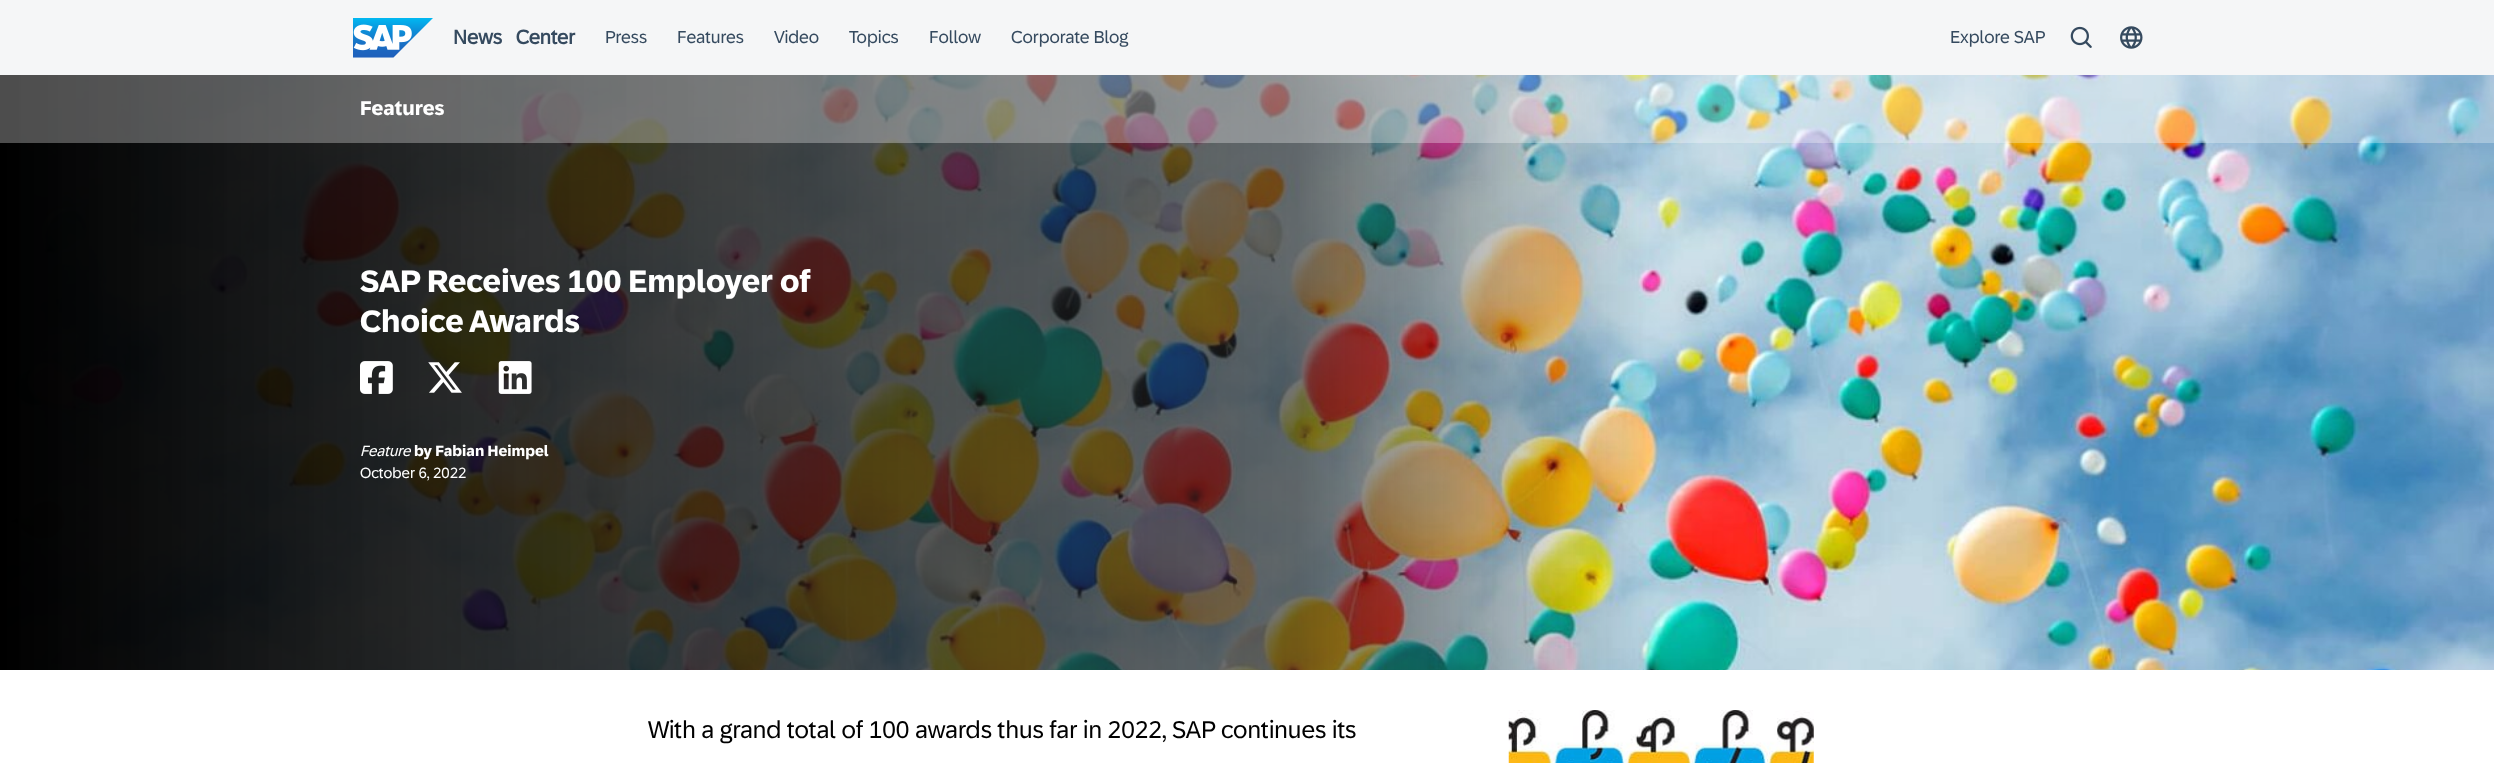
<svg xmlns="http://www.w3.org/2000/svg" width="2494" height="763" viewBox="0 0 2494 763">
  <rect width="100%" height="100%" fill="#f5f6f7"/>
  <image x="353" y="18" width="80" height="40" href="img/1.png"/>
  <image x="2070" y="26" width="22" height="22" href="img/2.png"/>
  <image x="2120" y="26" width="23" height="23" href="img/3.png"/>
  <image x="0" y="75" width="2494" height="595" href="img/4.png"/>
  <path d="M0 75h2494v68H0z" fill="#ffffff4d"/>
  <image x="360" y="361" width="33" height="33" href="img/5.png"/>
  <image x="428" y="362" width="34" height="31" href="img/6.png"/>
  <image x="498" y="361" width="34" height="33" href="img/7.png"/>
  <path d="M0 670h2494v93H0z" fill="#fff"/>
  <image x="1508" y="710" width="306" height="53" href="img/8.png"/>
  <text x="453" y="44" word-spacing="9" font-family="'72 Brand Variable'" font-size="20" font-weight="bold" fill="#354a5f">News Center</text>
  <g font-family="'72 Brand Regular'" font-size="17.5" fill="#354a5f">
    <text x="605" y="43">Press</text>
    <text x="677" y="43">Features</text>
    <text x="774" y="43">Video</text>
    <text x="849" y="43">Topics</text>
    <text x="929" y="43">Follow</text>
    <text x="1011" y="43">Corporate Blog</text>
    <text x="1950" y="43">Explore SAP</text>
  </g>
  <text x="360" y="115" font-family="'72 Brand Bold'" font-size="20" font-weight="bold" fill="#fff">Features</text>
  <g font-family="'72 Brand Bold'" font-size="31.25" font-weight="bold" fill="#fff">
    <text x="360" y="292">SAP Receives 100 Employer of</text>
    <text x="360" y="332">Choice Awards</text>
  </g>
  <text x="414" y="456" font-family="'72 Brand Bold'" font-size="15" font-weight="bold" fill="#fff">by Fabian Heimpel</text>
  <text x="360" y="478" font-family="'72 Brand Regular'" font-size="15" fill="#fff">October 6, 2022</text>
  <text x="360" y="456" font-family="'72 Brand Regular'" font-size="15" font-style="italic" fill="#fff">Feature</text>
  <text x="648" y="738" font-family="'72 Brand Regular'" font-size="24.4" fill="#000">With a grand total of 100 awards thus far in 2022, SAP continues its</text>
</svg>
